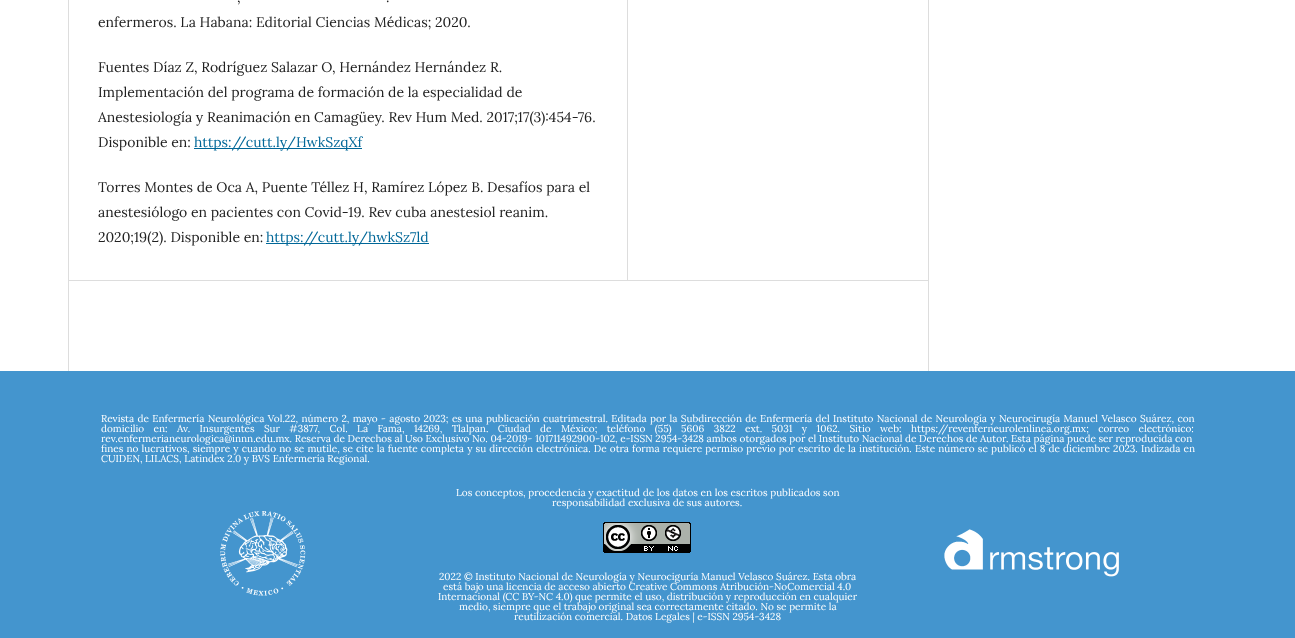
<svg xmlns="http://www.w3.org/2000/svg" width="1295" height="638" viewBox="0 0 1295 638">
  <rect width="100%" height="100%" fill="#fff"/>
  <path d="M68 280h860v1H68z" fill="#ddd"/>
  <path d="M68 0h1v371H68z" fill="#ddd"/>
  <path d="M627 0h1v280H627z" fill="#ddd"/>
  <path d="M194 148h168v1H194z" fill="#006798"/>
  <path d="M266 243h163v1H266z" fill="#006798"/>
  <path d="M928 0h1v371H928z" fill="#ddd"/>
  <path d="M0 371h1295v267H0z" fill="#4495ce"/>
  <image x="220" y="511" width="86" height="85" href="img/1.png"/>
  <image x="603" y="522" width="88" height="31" href="img/2.png"/>
  <image x="944" y="529" width="175" height="48" href="img/3.png"/>
  <g font-family="Lora" font-size="14" fill="#212121">
    <text x="237" y="2">,</text>
    <text x="386" y="2">.</text>
    <text x="98" y="27">enfermeros. La Habana: Editorial Ciencias Médicas; 2020.</text>
    <text x="98" y="72">Fuentes Díaz Z, Rodríguez Salazar O, Hernández Hernández R.</text>
    <text x="98" y="97">Implementación del programa de formación de la especialidad de</text>
    <text x="98" y="122">Anestesiología y Reanimación en Camagüey. Rev Hum Med. 2017;17(3):454-76.</text>
    <text x="98" y="147">Disponible en:</text>
  </g>
  <text x="194" y="147" font-family="Lora" font-size="14" fill="#006798">https://cutt.ly/HwkSzqXf</text>
  <g font-family="Lora" font-size="14" fill="#212121">
    <text x="98" y="192">Torres Montes de Oca A, Puente Téllez H, Ramírez López B. Desafíos para el</text>
    <text x="98" y="217">anestesiólogo en pacientes con Covid-19. Rev cuba anestesiol reanim.</text>
    <text x="98" y="242">2020;19(2). Disponible en:</text>
  </g>
  <text x="266" y="242" font-family="Lora" font-size="14" fill="#006798">https://cutt.ly/hwkSz7ld</text>
  <g font-family="Lora" font-size="10" fill="#fff">
    <text x="101" y="422" word-spacing="0.75">Revista de Enfermería Neurológica Vol.22, número 2, mayo - agosto 2023; es una publicación cuatrimestral. Editada por la Subdirección de Enfermería del Instituto Nacional de Neurología y Neurocirugía Manuel Velasco Suárez, con</text>
    <text x="101" y="432" word-spacing="6.8">domicilio en: Av. Insurgentes Sur #3877, Col. La Fama, 14269, Tlalpan. Ciudad de México; teléfono (55) 5606 3822 ext. 5031 y 1062. Sitio web: https://revenferneurolenlinea.org.mx; correo electrónico:</text>
    <text x="101" y="442">rev.enfermerianeurologica@innn.edu.mx. Reserva de Derechos al Uso Exclusivo No. 04-2019- 101711492900-102, e-ISSN 2954-3428 ambos otorgados por el Instituto Nacional de Derechos de Autor. Esta página puede ser reproducida con</text>
    <text x="101" y="452" word-spacing="0.5">fines no lucrativos, siempre y cuando no se mutile, se cite la fuente completa y su dirección electrónica. De otra forma requiere permiso previo por escrito de la institución. Este número se publicó el 8 de diciembre 2023. Indizada en</text>
    <text x="101" y="462">CUIDEN, LILACS, Latindex 2.0 y BVS Enfermería Regional.</text>
    <text x="456" y="496">Los conceptos, procedencia y exactitud de los datos en los escritos publicados son</text>
    <text x="552" y="506">responsabilidad exclusiva de sus autores.</text>
    <text x="439" y="580">2022 © Instituto Nacional de Neurología y Neurociguría Manuel Velasco Suárez. Esta obra</text>
    <text x="443" y="590">está bajo una licencia de acceso abierto Creative Commons Atribución-NoComercial 4.0</text>
    <text x="438" y="600">Internacional (CC BY-NC 4.0) que permite el uso, distribución y reproducción en cualquier</text>
    <text x="459" y="610">medio, siempre que el trabajo original sea correctamente citado. No se permite la</text>
    <text x="514" y="620">reutilización comercial. Datos Legales | e-ISSN 2954-3428</text>
  </g>
</svg>
